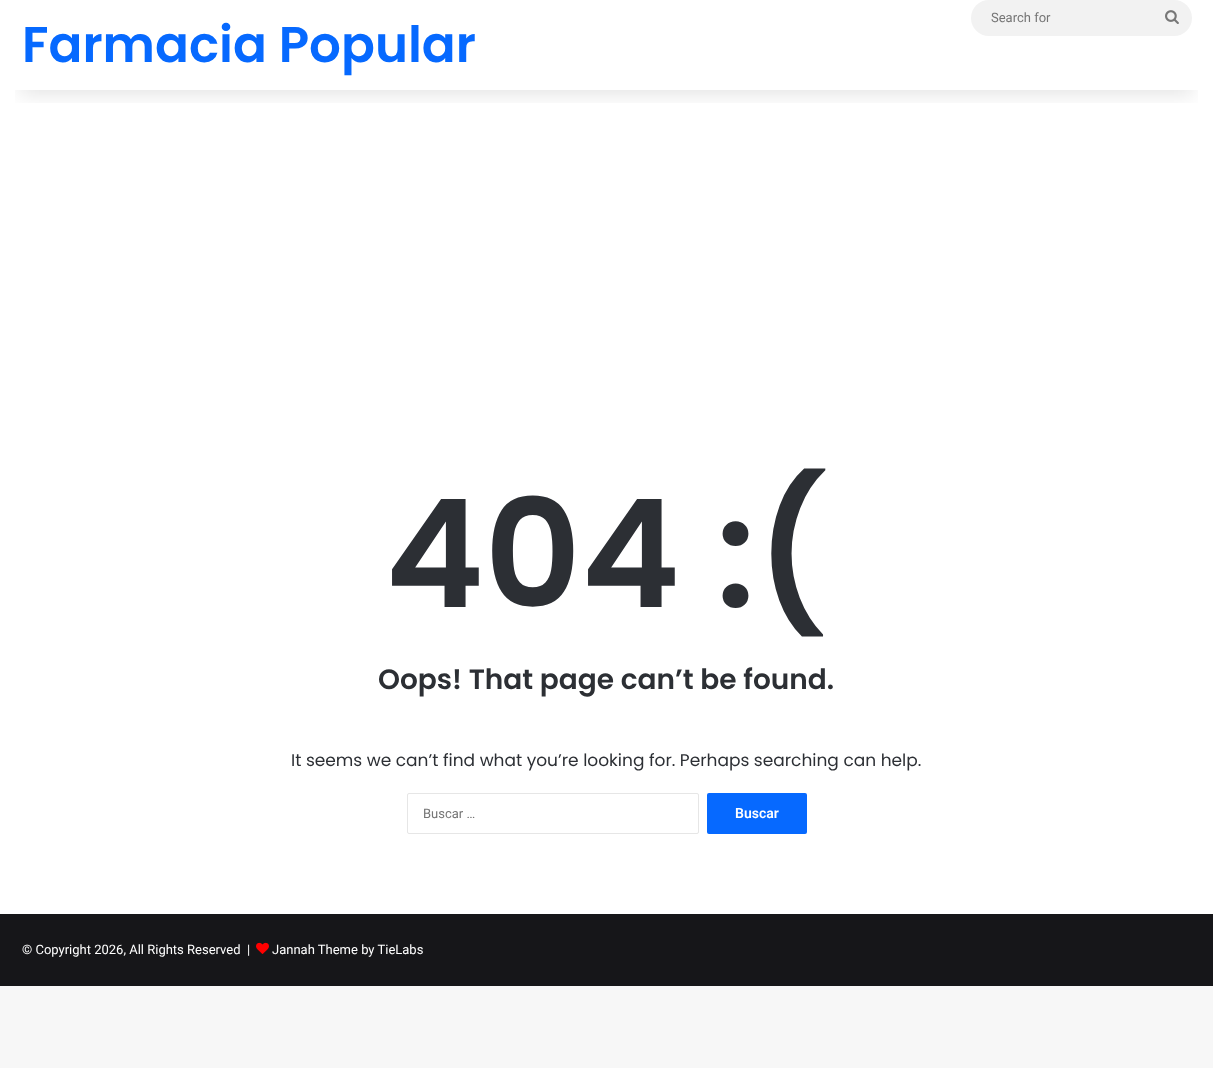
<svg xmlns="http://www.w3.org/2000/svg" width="1213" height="1068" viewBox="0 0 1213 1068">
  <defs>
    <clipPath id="clip1"><path d="M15 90h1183v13H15z"/></clipPath>
  </defs>
  <rect width="100%" height="100%" fill="#f7f7f7"/>
  <path d="M0 0h1213v914H0z" fill="#fff"/>
  <g clip-path="url(#clip1)">
    <path d="M20 45h1173v50H20z" fill="#0000001a" filter="blur(10px)"/>
  </g>
  <rect x="971" width="221" height="36" rx="18" fill="#f2f2f2"/>
  <image x="1165" y="10" width="14" height="14" href="img/1.png"/>
  <rect x="407.5" y="793.5" width="291" height="40" rx="1.5" fill="none" stroke="#e6e6e6"/>
  <rect x="707" y="793" width="100" height="41" rx="2" fill="#0669ff"/>
  <path d="M0 914h1213v72H0z" fill="#161619"/>
  <image x="256" y="942" width="13" height="12" href="img/2.png"/>
  <text x="991" y="22" font-family="Roboto" font-size="13" fill="#757575">Search for</text>
  <text x="22" y="62" font-family="Poppins" font-size="50" font-weight="600" fill="#0669ff">Farmacia Popular</text>
  <text x="385" y="607" font-family="Poppins" font-size="150" font-weight="600" fill="#2c2f34">404 :(</text>
  <text x="378" y="689" font-family="Poppins" font-size="28" font-weight="600" fill="#2c2f34">Oops! That page can’t be found.</text>
  <text x="291" y="766" font-family="Poppins" font-size="17" fill="#2c2f34">It seems we can’t find what you’re looking for. Perhaps searching can help.</text>
  <text x="423" y="818" font-family="Roboto" font-size="13" fill="#757575">Buscar …</text>
  <text x="735" y="818" font-family="Roboto" font-size="14" font-weight="600" fill="#fff">Buscar</text>
  <g font-family="Roboto" font-size="13" fill="#fff">
    <text x="22" y="954" xml:space="preserve">© Copyright 2026, All Rights Reserved  |</text>
    <text x="272" y="954">Jannah Theme by TieLabs</text>
  </g>
</svg>
